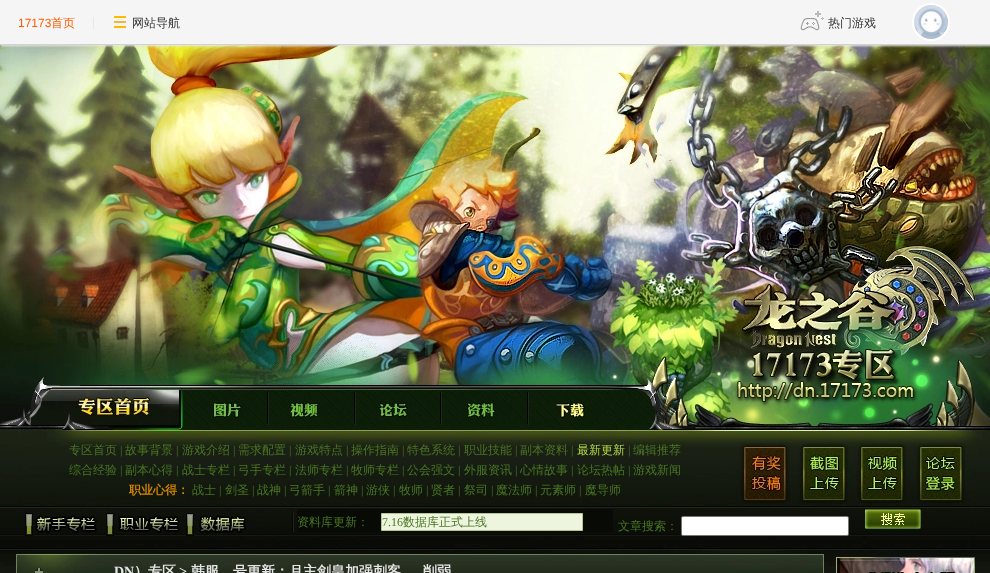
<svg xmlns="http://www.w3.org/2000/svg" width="990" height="573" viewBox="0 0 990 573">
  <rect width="100%" height="100%" fill="#fff"/>
  <image x="0" y="553" width="990" height="20" href="img/1.png"/>
  <image x="0" y="45" width="990" height="508" href="img/5.png"/>
  <image x="15" y="45" width="240" height="170" href="img/6.png"/>
  <image x="255" y="45" width="240" height="170" href="img/7.png"/>
  <image x="495" y="45" width="240" height="170" href="img/8.png"/>
  <image x="735" y="45" width="240" height="170" href="img/9.png"/>
  <path d="M0 1h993v45H0z" fill="#e8e6e6" filter="blur(1px)"/>
  <path d="M0 0h990v44H0z" fill="#f5f5f5"/>
  <path d="M0 44h990v1H0z" fill="#d2d2d2"/>
  <path d="M93 17h1v12H93z" fill="#e8e8e8"/>
  <image x="114" y="16" width="12" height="12" href="img/2.png"/>
  <image x="800" y="11" width="24" height="20" href="img/3.png"/>
  <circle cx="931" cy="22" r="18" fill="none" stroke="#fff" stroke-width="2"/>
  <image x="914" y="5" width="34" height="34" href="img/4.png"/>
  <image x="15" y="215" width="240" height="170" href="img/10.png"/>
  <image x="255" y="215" width="240" height="170" href="img/11.png"/>
  <image x="495" y="215" width="240" height="170" href="img/12.png"/>
  <image x="735" y="215" width="240" height="170" href="img/13.png"/>
  <image x="15" y="385" width="168" height="46" href="img/14.png"/>
  <image x="183" y="385" width="455" height="46" href="img/15.png"/>
  <image x="183" y="386" width="454" height="45" href="img/16.png"/>
  <image x="638" y="385" width="337" height="46" href="img/17.png"/>
  <image x="21" y="431" width="714" height="77" href="img/18.png"/>
  <image x="735" y="431" width="240" height="77" href="img/19.png"/>
  <image x="735" y="434" width="240" height="72" href="img/20.png"/>
  <image x="22" y="508" width="275" height="28" href="img/21.png"/>
  <image x="297" y="508" width="671" height="28" href="img/22.png"/>
  <path d="M381.5 513.5h201v17H381.5z" fill="#eef5df" stroke="#b4c592"/>
  <rect x="681.5" y="516.5" width="167" height="19" rx="1.5" fill="#fff" stroke="#767676"/>
  <image x="864" y="508" width="58" height="22" href="img/23.png"/>
  <image x="15" y="536" width="953" height="17" href="img/24.png"/>
  <image x="16" y="553" width="808" height="20" href="img/25.png"/>
  <image x="836" y="557" width="139" height="16" href="img/26.png"/>
  <text x="18" y="27" font-family="Liberation Sans" font-size="12" fill="#ff5c00">17173</text>
  <text x="51" y="27" font-family="WenQuanYi Zen Hei" font-size="12" font-weight="500" fill="#ff5c00">首页</text>
  <g font-family="WenQuanYi Zen Hei" font-size="12" font-weight="500" fill="#333">
    <text x="132" y="27">网站导航</text>
    <text x="828" y="27">热门游戏</text>
  </g>
  <text x="69" y="454" font-family="WenQuanYi Zen Hei" font-size="12" font-weight="500" fill="#4a7525">专区首页</text>
  <text x="120" y="454" font-family="Liberation Serif" font-size="12" fill="#4a7525">|</text>
  <text x="125" y="454" font-family="WenQuanYi Zen Hei" font-size="12" font-weight="500" fill="#4a7525">故事背景</text>
  <text x="176" y="454" font-family="Liberation Serif" font-size="12" fill="#4a7525">|</text>
  <text x="182" y="454" font-family="WenQuanYi Zen Hei" font-size="12" font-weight="500" fill="#4a7525">游戏介绍</text>
  <text x="233" y="454" font-family="Liberation Serif" font-size="12" fill="#4a7525">|</text>
  <text x="238" y="454" font-family="WenQuanYi Zen Hei" font-size="12" font-weight="500" fill="#4a7525">需求配置</text>
  <text x="289" y="454" font-family="Liberation Serif" font-size="12" fill="#4a7525">|</text>
  <text x="295" y="454" font-family="WenQuanYi Zen Hei" font-size="12" font-weight="500" fill="#4a7525">游戏特点</text>
  <text x="346" y="454" font-family="Liberation Serif" font-size="12" fill="#4a7525">|</text>
  <text x="351" y="454" font-family="WenQuanYi Zen Hei" font-size="12" font-weight="500" fill="#4a7525">操作指南</text>
  <text x="402" y="454" font-family="Liberation Serif" font-size="12" fill="#4a7525">|</text>
  <text x="407" y="454" font-family="WenQuanYi Zen Hei" font-size="12" font-weight="500" fill="#4a7525">特色系统</text>
  <text x="458" y="454" font-family="Liberation Serif" font-size="12" fill="#4a7525">|</text>
  <text x="464" y="454" font-family="WenQuanYi Zen Hei" font-size="12" font-weight="500" fill="#4a7525">职业技能</text>
  <text x="515" y="454" font-family="Liberation Serif" font-size="12" fill="#4a7525">|</text>
  <text x="520" y="454" font-family="WenQuanYi Zen Hei" font-size="12" font-weight="500" fill="#4a7525">副本资料</text>
  <text x="571" y="454" font-family="Liberation Serif" font-size="12" fill="#4a7525">|</text>
  <text x="577" y="454" font-family="WenQuanYi Zen Hei" font-size="12" font-weight="500" fill="#b4d846">最新更新</text>
  <text x="628" y="454" font-family="Liberation Serif" font-size="12" fill="#4a7525">|</text>
  <g font-family="WenQuanYi Zen Hei" font-size="12" font-weight="500" fill="#4a7525">
    <text x="633" y="454">编辑推荐</text>
    <text x="69" y="474">综合经验</text>
  </g>
  <text x="120" y="474" font-family="Liberation Serif" font-size="12" fill="#4a7525">|</text>
  <text x="125" y="474" font-family="WenQuanYi Zen Hei" font-size="12" font-weight="500" fill="#4a7525">副本心得</text>
  <text x="176" y="474" font-family="Liberation Serif" font-size="12" fill="#4a7525">|</text>
  <text x="182" y="474" font-family="WenQuanYi Zen Hei" font-size="12" font-weight="500" fill="#4a7525">战士专栏</text>
  <text x="233" y="474" font-family="Liberation Serif" font-size="12" fill="#4a7525">|</text>
  <text x="238" y="474" font-family="WenQuanYi Zen Hei" font-size="12" font-weight="500" fill="#4a7525">弓手专栏</text>
  <text x="289" y="474" font-family="Liberation Serif" font-size="12" fill="#4a7525">|</text>
  <text x="295" y="474" font-family="WenQuanYi Zen Hei" font-size="12" font-weight="500" fill="#4a7525">法师专栏</text>
  <text x="346" y="474" font-family="Liberation Serif" font-size="12" fill="#4a7525">|</text>
  <text x="351" y="474" font-family="WenQuanYi Zen Hei" font-size="12" font-weight="500" fill="#4a7525">牧师专栏</text>
  <text x="402" y="474" font-family="Liberation Serif" font-size="12" fill="#4a7525">|</text>
  <text x="407" y="474" font-family="WenQuanYi Zen Hei" font-size="12" font-weight="500" fill="#4a7525">公会强文</text>
  <text x="458" y="474" font-family="Liberation Serif" font-size="12" fill="#4a7525">|</text>
  <text x="464" y="474" font-family="WenQuanYi Zen Hei" font-size="12" font-weight="500" fill="#4a7525">外服资讯</text>
  <text x="515" y="474" font-family="Liberation Serif" font-size="12" fill="#4a7525">|</text>
  <text x="520" y="474" font-family="WenQuanYi Zen Hei" font-size="12" font-weight="500" fill="#4a7525">心情故事</text>
  <text x="571" y="474" font-family="Liberation Serif" font-size="12" fill="#4a7525">|</text>
  <text x="577" y="474" font-family="WenQuanYi Zen Hei" font-size="12" font-weight="500" fill="#4a7525">论坛热帖</text>
  <text x="628" y="474" font-family="Liberation Serif" font-size="12" fill="#4a7525">|</text>
  <text x="633" y="474" font-family="WenQuanYi Zen Hei" font-size="12" font-weight="500" fill="#4a7525">游戏新闻</text>
  <text x="129" y="494" font-family="WenQuanYi Zen Hei" font-size="12" font-weight="bold" fill="#d68800">职业心得：</text>
  <text x="192" y="494" font-family="WenQuanYi Zen Hei" font-size="12" font-weight="500" fill="#4a7525">战士</text>
  <text x="219" y="494" font-family="Liberation Serif" font-size="12" fill="#4a7525">|</text>
  <text x="225" y="494" font-family="WenQuanYi Zen Hei" font-size="12" font-weight="500" fill="#4a7525">剑圣</text>
  <text x="252" y="494" font-family="Liberation Serif" font-size="12" fill="#4a7525">|</text>
  <text x="257" y="494" font-family="WenQuanYi Zen Hei" font-size="12" font-weight="500" fill="#4a7525">战神</text>
  <text x="284" y="494" font-family="Liberation Serif" font-size="12" fill="#4a7525">|</text>
  <text x="289" y="494" font-family="WenQuanYi Zen Hei" font-size="12" font-weight="500" fill="#4a7525">弓箭手</text>
  <text x="328" y="494" font-family="Liberation Serif" font-size="12" fill="#4a7525">|</text>
  <text x="334" y="494" font-family="WenQuanYi Zen Hei" font-size="12" font-weight="500" fill="#4a7525">箭神</text>
  <text x="361" y="494" font-family="Liberation Serif" font-size="12" fill="#4a7525">|</text>
  <text x="366" y="494" font-family="WenQuanYi Zen Hei" font-size="12" font-weight="500" fill="#4a7525">游侠</text>
  <text x="393" y="494" font-family="Liberation Serif" font-size="12" fill="#4a7525">|</text>
  <text x="399" y="494" font-family="WenQuanYi Zen Hei" font-size="12" font-weight="500" fill="#4a7525">牧师</text>
  <text x="426" y="494" font-family="Liberation Serif" font-size="12" fill="#4a7525">|</text>
  <text x="431" y="494" font-family="WenQuanYi Zen Hei" font-size="12" font-weight="500" fill="#4a7525">贤者</text>
  <text x="458" y="494" font-family="Liberation Serif" font-size="12" fill="#4a7525">|</text>
  <text x="464" y="494" font-family="WenQuanYi Zen Hei" font-size="12" font-weight="500" fill="#4a7525">祭司</text>
  <text x="491" y="494" font-family="Liberation Serif" font-size="12" fill="#4a7525">|</text>
  <text x="496" y="494" font-family="WenQuanYi Zen Hei" font-size="12" font-weight="500" fill="#4a7525">魔法师</text>
  <text x="535" y="494" font-family="Liberation Serif" font-size="12" fill="#4a7525">|</text>
  <text x="540" y="494" font-family="WenQuanYi Zen Hei" font-size="12" font-weight="500" fill="#4a7525">元素师</text>
  <text x="579" y="494" font-family="Liberation Serif" font-size="12" fill="#4a7525">|</text>
  <g font-family="WenQuanYi Zen Hei" font-size="12" font-weight="500" fill="#4a7525">
    <text x="585" y="494">魔导师</text>
    <text x="297" y="526">资料库更新：</text>
  </g>
  <text x="382" y="526" font-family="Liberation Serif" font-size="12" fill="#4a7525">7.16</text>
  <g font-family="WenQuanYi Zen Hei" font-size="12" font-weight="500" fill="#4a7525">
    <text x="403" y="526">数据库正式上线</text>
    <text x="618" y="530">文章搜索：</text>
  </g>
  <text x="114" y="576" font-family="Liberation Serif" font-size="14" font-weight="bold" fill="#e5e5e5">DN</text>
  <text x="134" y="576" font-family="WenQuanYi Zen Hei" font-size="14" font-weight="bold" fill="#e5e5e5">）专区</text>
  <text x="179" y="576" font-family="Liberation Serif" font-size="14" font-weight="bold" fill="#e5e5e5">&gt;</text>
  <g font-family="WenQuanYi Zen Hei" font-size="14" font-weight="bold" fill="#e5e5e5">
    <text x="191" y="576">韩服</text>
    <text x="233" y="576">号更新：月主剑皇加强刺客</text>
    <text x="423" y="576">削弱</text>
  </g>
</svg>
